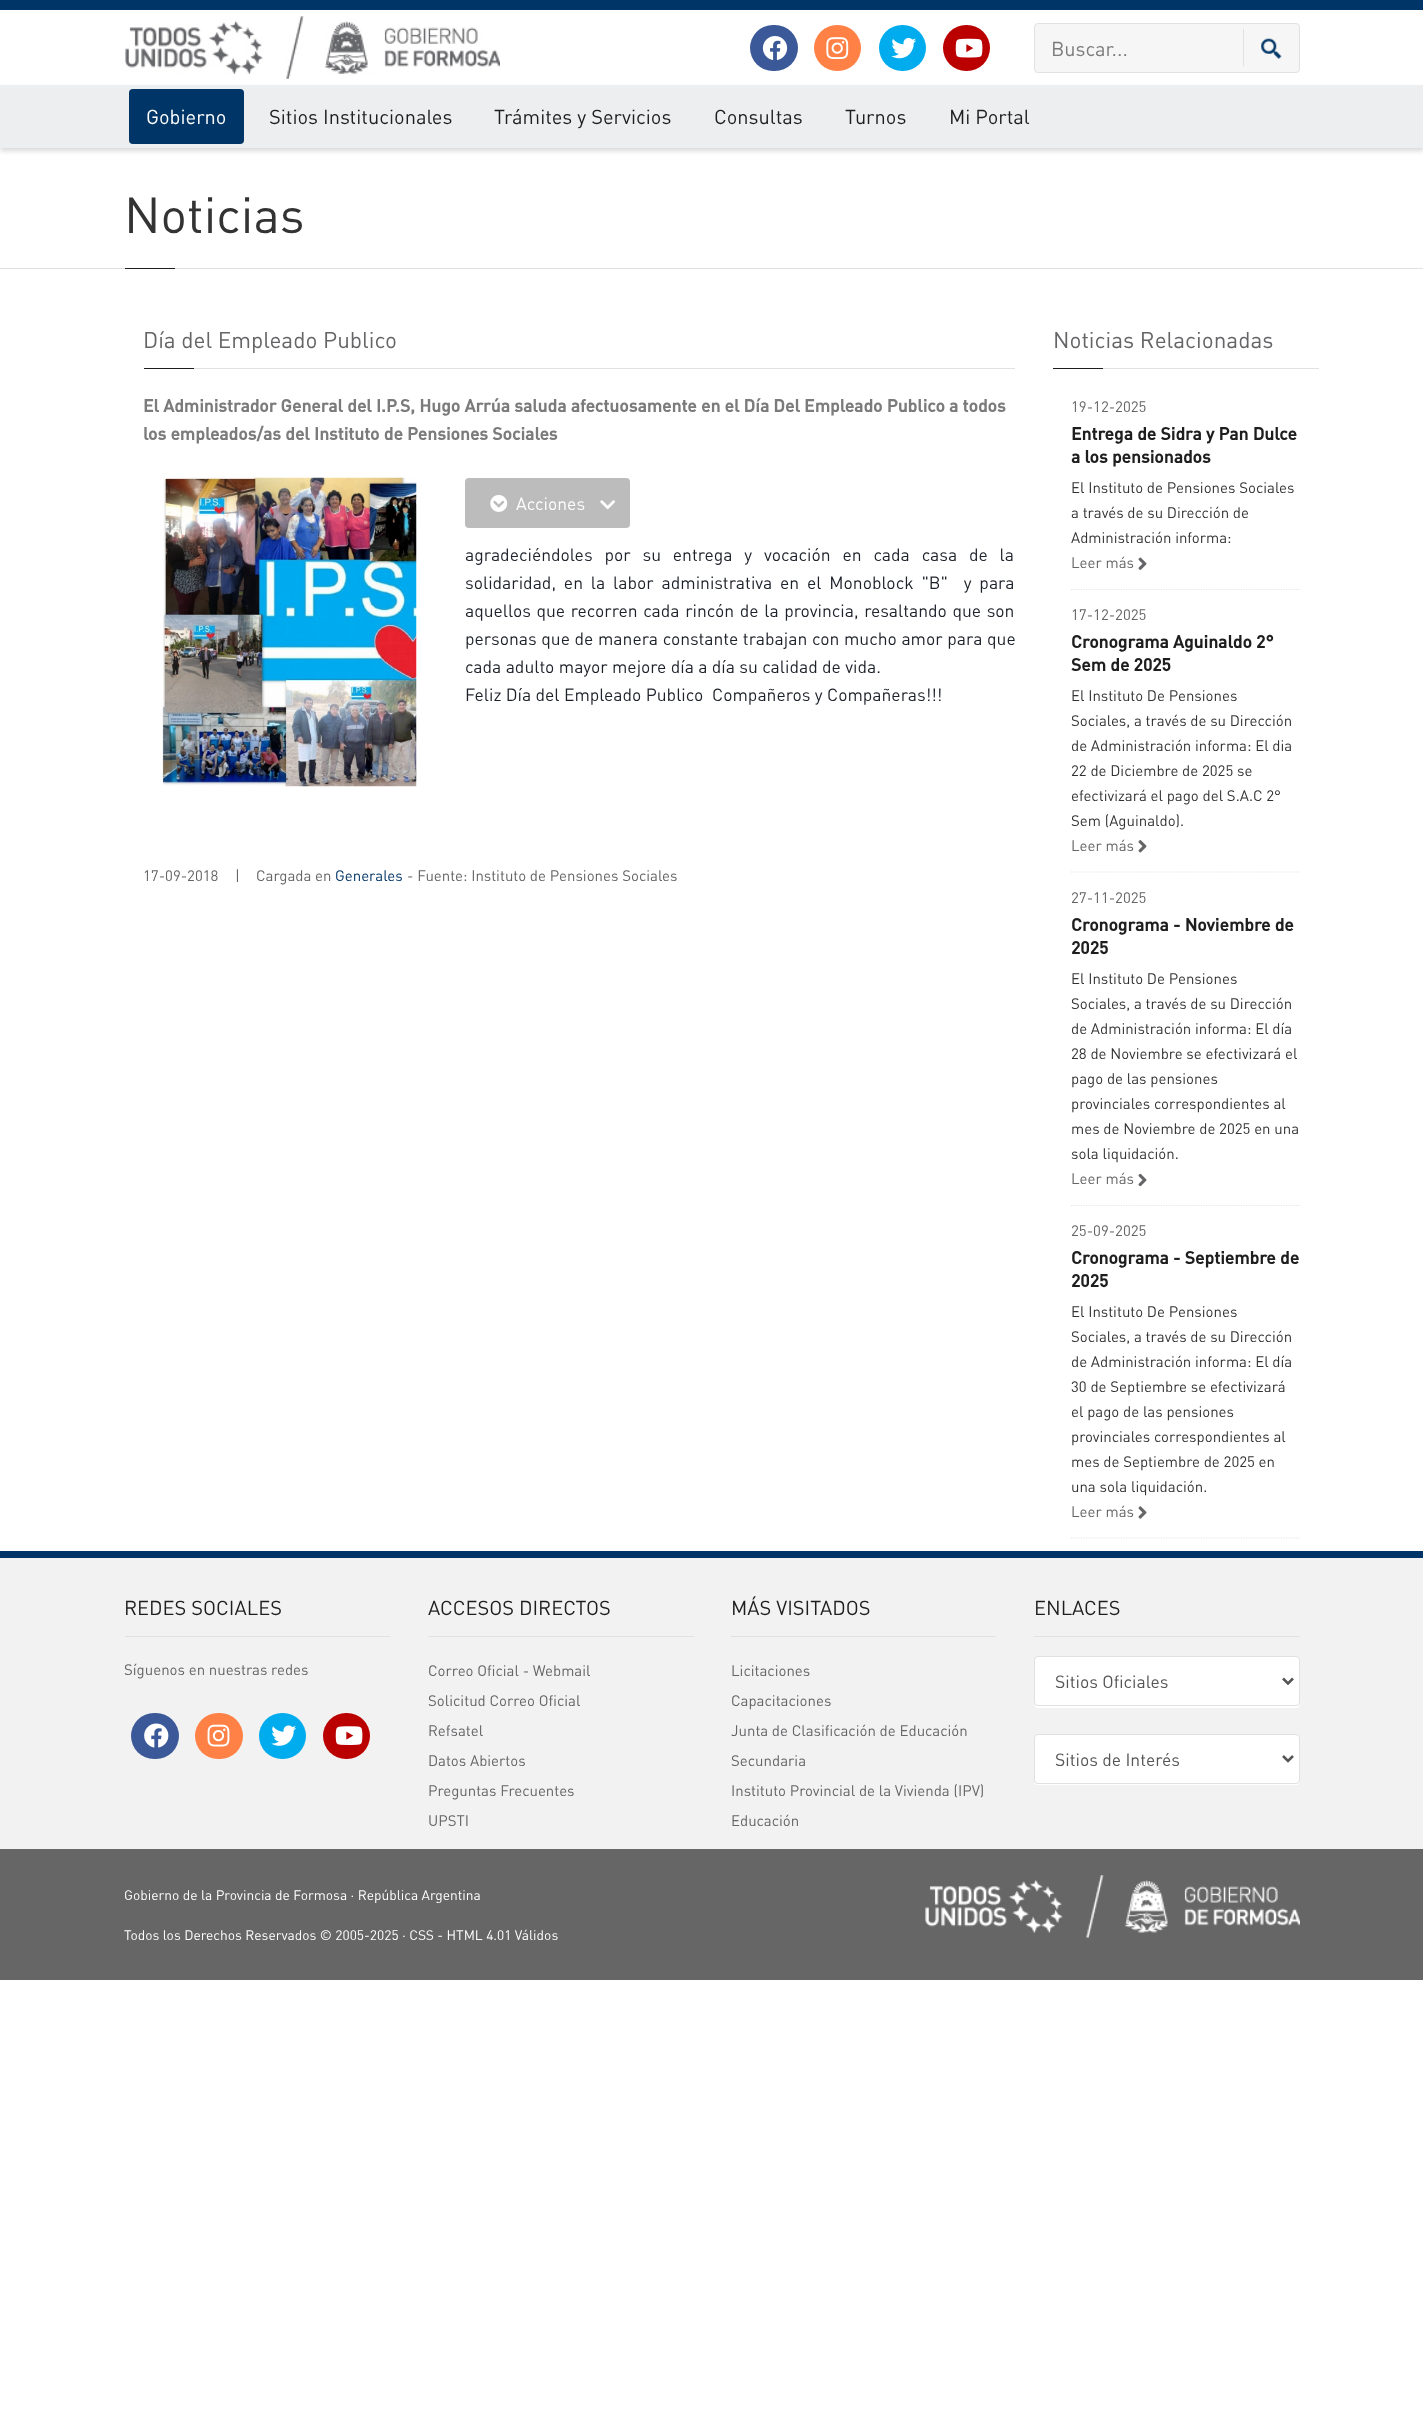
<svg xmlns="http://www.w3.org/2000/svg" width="1423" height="2425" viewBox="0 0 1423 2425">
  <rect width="100%" height="100%" fill="#fff"/>
  <path d="M0 0h1423v10H0z" fill="#003667"/>
  <image x="125" y="16" width="375" height="63" href="img/1.png"/>
  <rect x="750" y="25" width="48" height="46" rx="23" fill="#3b5998"/>
  <image x="762" y="36" width="26" height="24" href="img/2.png"/>
  <rect x="814" y="25" width="47" height="46" rx="23" fill="#ff8146"/>
  <image x="826" y="37" width="23" height="23" href="img/3.png"/>
  <rect x="879" y="25" width="47" height="46" rx="23" fill="#00aced"/>
  <image x="891" y="38" width="26" height="21" href="img/4.png"/>
  <rect x="943" y="25" width="47" height="46" rx="23" fill="#b00"/>
  <image x="955" y="38" width="28" height="20" href="img/5.png"/>
  <rect x="1034.5" y="23.5" width="265" height="49" rx="3.5" fill="#f6f6f6" stroke="#e1e1e1"/>
  <path d="M1243 29h1v37H1243z" fill="#e1e1e1"/>
  <image x="1261" y="38" width="21" height="21" href="img/6.png"/>
  <path d="M0 89h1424v62H0z" fill="#00000026" filter="blur(2.5px)"/>
  <path d="M0 85h1423v63H0z" fill="#edeef0"/>
  <rect x="129" y="89" width="115" height="55" rx="4" fill="#003667"/>
  <path d="M0 268h1423v1H0z" fill="#e1e1e1"/>
  <path d="M125 268h50v1H125z" fill="#1e1e1e"/>
  <path d="M194 368h821v1H194z" fill="#e1e1e1"/>
  <path d="M144 368h50v1H144z" fill="#1e1e1e"/>
  <image x="162" y="477" width="255" height="310" href="img/7.png"/>
  <rect x="465" y="478" width="165" height="50" rx="4" fill="#bcbcbc"/>
  <image x="490" y="495" width="18" height="17" href="img/8.png"/>
  <image x="600" y="500" width="15" height="10" href="img/9.png"/>
  <path d="M1103 368h216v1H1103z" fill="#e1e1e1"/>
  <path d="M1053 368h50v1H1053z" fill="#1e1e1e"/>
  <image x="1138" y="557" width="9" height="13" href="img/10.png"/>
  <path d="M1071 589.5H1300" fill="none" stroke="#e6e6e6" stroke-width="1.2" stroke-dasharray="1.25 1.25"/>
  <image x="1138" y="840" width="9" height="13" href="img/11.png"/>
  <path d="M1071 872H1300" fill="none" stroke="#e6e6e6" stroke-width="1.2" stroke-dasharray="1.25 1.25"/>
  <image x="1138" y="1173" width="9" height="14" href="img/12.png"/>
  <path d="M1071 1205.5H1300" fill="none" stroke="#e6e6e6" stroke-width="1.2" stroke-dasharray="1.25 1.25"/>
  <image x="1138" y="1506" width="9" height="13" href="img/13.png"/>
  <path d="M1071 1538H1300" fill="none" stroke="#e6e6e6" stroke-width="1.2" stroke-dasharray="1.25 1.25"/>
  <path d="M0 1551h1423v7H0z" fill="#003667"/>
  <path d="M0 1558h1423v291H0z" fill="#f2f2f2"/>
  <path d="M125 1636h265v1H125z" fill="#e1e1e1"/>
  <rect x="131" y="1713" width="48" height="46" rx="23" fill="#3b5998"/>
  <image x="144" y="1723" width="25" height="25" href="img/14.png"/>
  <rect x="195" y="1713" width="48" height="46" rx="23" fill="#ff8146"/>
  <image x="207" y="1724" width="23" height="23" href="img/15.png"/>
  <rect x="259" y="1713" width="47" height="46" rx="23" fill="#00aced"/>
  <image x="271" y="1725" width="25" height="21" href="img/16.png"/>
  <rect x="323" y="1713" width="47" height="46" rx="23" fill="#b00"/>
  <image x="335" y="1726" width="28" height="19" href="img/17.png"/>
  <path d="M428 1636h266v1H428z" fill="#e1e1e1"/>
  <path d="M731 1636h265v1H731z" fill="#e1e1e1"/>
  <path d="M1034 1636h266v1H1034z" fill="#e1e1e1"/>
  <path d="M1034 1704C1034 1706 1036 1708 1038 1708H1296C1298 1708 1300 1706 1300 1704V1702C1300 1705 1298 1706 1296 1706H1038C1036 1706 1035 1705 1034 1704Z" fill="#fff"/>
  <rect x="1034.5" y="1656.5" width="265" height="49" rx="3.5" fill="#fff" stroke="#e1e1e1"/>
  <path d="M1283 1678.5L1288 1683.5L1293 1678.5" fill="none" stroke="#555" stroke-width="2.5"/>
  <path d="M1034 1781L1035 1784L1038 1785H1296C1299 1785 1300 1783 1300 1780C1300 1782 1298 1784 1296 1784H1038C1036 1784 1035 1783 1034 1781Z" fill="#fff"/>
  <rect x="1034.5" y="1734.5" width="265" height="49" rx="3.5" fill="#fff" stroke="#e1e1e1"/>
  <path d="M1283 1756L1288 1761L1293 1756" fill="none" stroke="#555" stroke-width="2.5"/>
  <path d="M0 1849h1423v131H0z" fill="#666"/>
  <image x="925" y="1875" width="375" height="63" href="img/18.png"/>
  <text x="1051" y="56" font-family="DIN" font-size="20" fill="#7b7b7b">Buscar...</text>
  <text x="146" y="124" font-family="DIN" font-size="20" fill="#fff">Gobierno</text>
  <g font-family="DIN" font-size="20" fill="#1e1e1e">
    <text x="269" y="124">Sitios Institucionales</text>
    <text x="494" y="124">Trámites y Servicios</text>
    <text x="714" y="124">Consultas</text>
    <text x="845" y="124">Turnos</text>
    <text x="949" y="124">Mi Portal</text>
  </g>
  <text x="124" y="233" font-family="DIN" font-size="50" fill="#333">Noticias</text>
  <text x="143" y="348" font-family="DIN" font-size="22.5" fill="#656568">Día del Empleado Publico</text>
  <g font-family="DIN" font-size="17.5" font-weight="bold" fill="#7b7b7b">
    <text x="143" y="412">El Administrador General del I.P.S, Hugo Arrúa saluda afectuosamente en el Día Del Empleado Publico a todos</text>
    <text x="143" y="440">los empleados/as del Instituto de Pensiones Sociales</text>
  </g>
  <text x="516" y="510" font-family="DIN" font-size="17.5" fill="#fff">Acciones</text>
  <g font-family="DIN" font-size="17.5" fill="#1d2129">
    <text x="465" y="561" word-spacing="7.5">agradeciéndoles por su entrega y vocación en cada casa de la</text>
    <text x="465" y="589" word-spacing="3.5" xml:space="preserve">solidaridad, en la labor administrativa en el Monoblock "B"  y para</text>
    <text x="465" y="617" word-spacing="1.25">aquellos que recorren cada rincón de la provincia, resaltando que son</text>
    <text x="465" y="645" word-spacing="0.25">personas que de manera constante trabajan con mucho amor para que</text>
    <text x="465" y="673">cada adulto mayor mejore día a día su calidad de vida.</text>
    <text x="465" y="701" xml:space="preserve">Feliz Día del Empleado Publico  Compañeros y Compañeras!!!</text>
  </g>
  <g font-family="DIN" font-size="15" fill="#656568">
    <text x="143" y="881">17-09-2018</text>
    <text x="235" y="881">|</text>
    <text x="256" y="881">Cargada en</text>
  </g>
  <text x="335" y="881" font-family="DIN" font-size="15" fill="#003667">Generales</text>
  <text x="407" y="881" font-family="DIN" font-size="15" fill="#656568">- Fuente: Instituto de Pensiones Sociales</text>
  <text x="1053" y="348" font-family="DIN" font-size="22.5" fill="#656568">Noticias Relacionadas</text>
  <text x="1071" y="412" font-family="DIN" font-size="15" fill="#656568">19-12-2025</text>
  <g font-family="DIN" font-size="17.5" font-weight="bold" fill="#1e1e1e">
    <text x="1071" y="440">Entrega de Sidra y Pan Dulce</text>
    <text x="1071" y="463">a los pensionados</text>
  </g>
  <g font-family="DIN" font-size="15" fill="#333">
    <text x="1071" y="493">El Instituto de Pensiones Sociales</text>
    <text x="1071" y="518">a través de su Dirección de</text>
    <text x="1071" y="543">Administración informa:</text>
  </g>
  <g font-family="DIN" font-size="15" fill="#656568">
    <text x="1071" y="568">Leer más</text>
    <text x="1071" y="620">17-12-2025</text>
  </g>
  <g font-family="DIN" font-size="17.5" font-weight="bold" fill="#1e1e1e">
    <text x="1071" y="648">Cronograma Aguinaldo 2°</text>
    <text x="1071" y="671">Sem de 2025</text>
  </g>
  <g font-family="DIN" font-size="15" fill="#333">
    <text x="1071" y="701">El Instituto De Pensiones</text>
    <text x="1071" y="726">Sociales, a través de su Dirección</text>
    <text x="1071" y="751">de Administración informa: El dia</text>
    <text x="1071" y="776">22 de Diciembre de 2025 se</text>
    <text x="1071" y="801">efectivizará el pago del S.A.C 2°</text>
    <text x="1071" y="826">Sem (Aguinaldo).</text>
  </g>
  <g font-family="DIN" font-size="15" fill="#656568">
    <text x="1071" y="851">Leer más</text>
    <text x="1071" y="903">27-11-2025</text>
  </g>
  <g font-family="DIN" font-size="17.5" font-weight="bold" fill="#1e1e1e">
    <text x="1071" y="931">Cronograma - Noviembre de</text>
    <text x="1071" y="954">2025</text>
  </g>
  <g font-family="DIN" font-size="15" fill="#333">
    <text x="1071" y="984">El Instituto De Pensiones</text>
    <text x="1071" y="1009">Sociales, a través de su Dirección</text>
    <text x="1071" y="1034">de Administración informa: El día</text>
    <text x="1071" y="1059">28 de Noviembre se efectivizará el</text>
    <text x="1071" y="1084">pago de las pensiones</text>
    <text x="1071" y="1109">provinciales correspondientes al</text>
    <text x="1071" y="1134">mes de Noviembre de 2025 en una</text>
    <text x="1071" y="1159">sola liquidación.</text>
  </g>
  <g font-family="DIN" font-size="15" fill="#656568">
    <text x="1071" y="1184">Leer más</text>
    <text x="1071" y="1236">25-09-2025</text>
  </g>
  <g font-family="DIN" font-size="17.5" font-weight="bold" fill="#1e1e1e">
    <text x="1071" y="1264">Cronograma - Septiembre de</text>
    <text x="1071" y="1287">2025</text>
  </g>
  <g font-family="DIN" font-size="15" fill="#333">
    <text x="1071" y="1317">El Instituto De Pensiones</text>
    <text x="1071" y="1342">Sociales, a través de su Dirección</text>
    <text x="1071" y="1367">de Administración informa: El día</text>
    <text x="1071" y="1392">30 de Septiembre se efectivizará</text>
    <text x="1071" y="1417">el pago de las pensiones</text>
    <text x="1071" y="1442">provinciales correspondientes al</text>
    <text x="1071" y="1467">mes de Septiembre de 2025 en</text>
    <text x="1071" y="1492">una sola liquidación.</text>
  </g>
  <text x="1071" y="1517" font-family="DIN" font-size="15" fill="#656568">Leer más</text>
  <text x="124" y="1615" font-family="DIN" font-size="20" fill="#1e1e1e">REDES SOCIALES</text>
  <text x="124" y="1675" font-family="DIN" font-size="15" fill="#656568">Síguenos en nuestras redes</text>
  <text x="428" y="1615" font-family="DIN" font-size="20" fill="#1e1e1e">ACCESOS DIRECTOS</text>
  <g font-family="DIN" font-size="15" fill="#656568">
    <text x="428" y="1676">Correo Oficial - Webmail</text>
    <text x="428" y="1706">Solicitud Correo Oficial</text>
    <text x="428" y="1736">Refsatel</text>
    <text x="428" y="1766">Datos Abiertos</text>
    <text x="428" y="1796">Preguntas Frecuentes</text>
    <text x="428" y="1826">UPSTI</text>
  </g>
  <text x="731" y="1615" font-family="DIN" font-size="20" fill="#1e1e1e">MÁS VISITADOS</text>
  <g font-family="DIN" font-size="15" fill="#656568">
    <text x="731" y="1676">Licitaciones</text>
    <text x="731" y="1706">Capacitaciones</text>
    <text x="731" y="1736">Junta de Clasificación de Educación</text>
    <text x="731" y="1766">Secundaria</text>
    <text x="731" y="1796">Instituto Provincial de la Vivienda (IPV)</text>
    <text x="731" y="1826">Educación</text>
  </g>
  <text x="1034" y="1615" font-family="DIN" font-size="20" fill="#1e1e1e">ENLACES</text>
  <g font-family="DIN" font-size="17.5" fill="#555">
    <text x="1055" y="1688">Sitios Oficiales</text>
    <text x="1055" y="1766">Sitios de Interés</text>
  </g>
  <g font-family="DIN" font-size="13.75" fill="#fff">
    <text x="124" y="1900">Gobierno de la Provincia de Formosa · República Argentina</text>
    <text x="124" y="1940">Todos los Derechos Reservados © 2005-2025 · CSS - HTML 4.01 Válidos</text>
  </g>
</svg>
